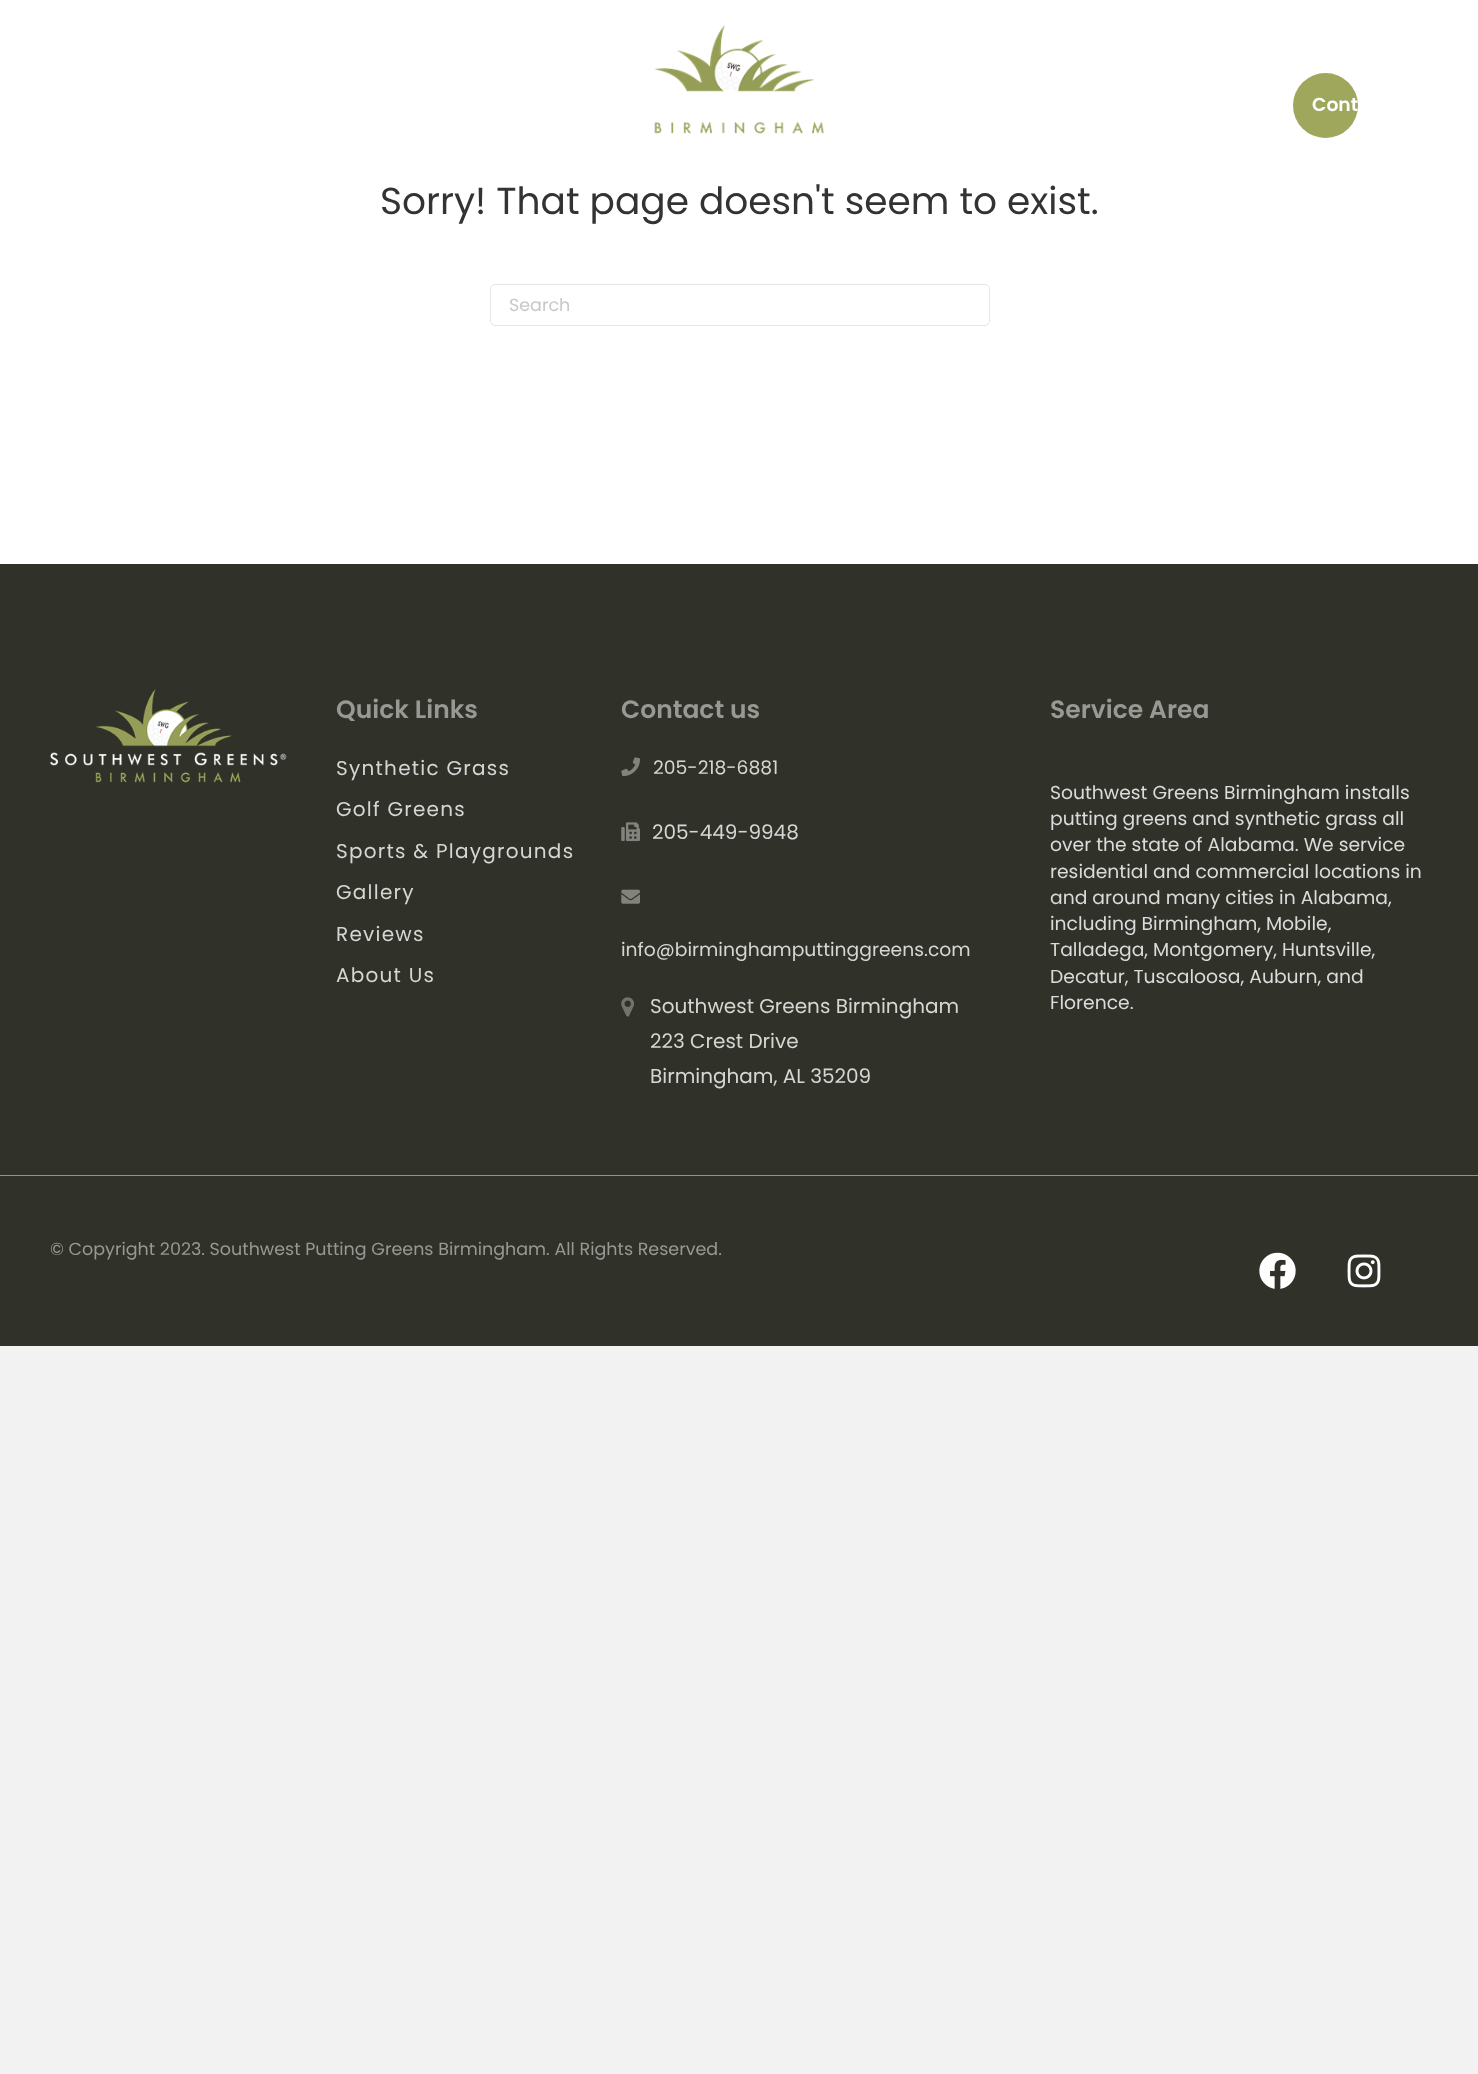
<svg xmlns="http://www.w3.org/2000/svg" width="1478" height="2074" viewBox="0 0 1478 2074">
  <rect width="100%" height="100%" fill="#f2f2f2"/>
  <path d="M0 0h1478v564H0z" fill="#fff"/>
  <image x="654" y="25" width="170" height="109" href="img/1.png"/>
  <circle cx="1325.5" cy="105.5" r="32.5" fill="#9ea75c"/>
  <rect x="490.5" y="284.5" width="499" height="41" rx="4.5" fill="none" stroke="#e6e6e6"/>
  <path d="M0 564h1478v611H0z" fill="#303129"/>
  <image x="50" y="689" width="237" height="94" href="img/2.png"/>
  <image x="621" y="757" width="19" height="20" href="img/3.png"/>
  <image x="621" y="822" width="19" height="20" href="img/4.png"/>
  <image x="621" y="889" width="19" height="15" href="img/5.png"/>
  <image x="621" y="997" width="14" height="20" href="img/6.png"/>
  <path d="M0 1175h1478v1H0z" fill="#93938f"/>
  <path d="M0 1176h1478v170H0z" fill="#303129"/>
  <image x="1259" y="1252" width="37" height="37" href="img/7.png"/>
  <image x="1347" y="1254" width="34" height="34" href="img/8.png"/>
  <text x="1312" y="111" font-family="Poppins" font-size="18.75" font-weight="600" fill="#fff">Cont</text>
  <text x="380" y="214" font-family="Poppins" font-size="37.5" fill="#333">Sorry! That page doesn't seem to exist.</text>
  <text x="509" y="311" font-family="Poppins" font-size="17.5" fill="#c8c8c8">Search</text>
  <text x="336" y="718" font-family="Poppins" font-size="25" font-weight="600" fill="#989894">Quick Links</text>
  <g font-family="Poppins" font-size="20" letter-spacing="1.25" fill="#d6d6d4">
    <text x="336" y="775">Synthetic Grass</text>
    <text x="336" y="816">Golf Greens</text>
    <text x="336" y="858">Sports &amp; Playgrounds</text>
    <text x="336" y="899">Gallery</text>
    <text x="336" y="941">Reviews</text>
    <text x="336" y="982">About Us</text>
  </g>
  <text x="621" y="718" font-family="Poppins" font-size="25" font-weight="600" fill="#989894">Contact us</text>
  <text x="653" y="774" font-family="Poppins" font-size="18.75" fill="#d6d6d4">205-218-6881</text>
  <text x="652" y="839" font-family="Poppins" font-size="20" fill="#d6d6d4">205-449-9948</text>
  <text x="621" y="956" font-family="Poppins" font-size="18.75" fill="#d6d6d4">info@birminghamputtinggreens.com</text>
  <g font-family="Poppins" font-size="20" fill="#d6d6d4">
    <text x="650" y="1013">Southwest Greens Birmingham</text>
    <text x="650" y="1048">223 Crest Drive</text>
    <text x="650" y="1083">Birmingham, AL 35209</text>
  </g>
  <text x="1050" y="718" font-family="Poppins" font-size="25" font-weight="600" fill="#989894">Service Area</text>
  <g font-family="Poppins" font-size="18.75" fill="#dbdbdb">
    <text x="1050" y="799">Southwest Greens Birmingham installs</text>
    <text x="1050" y="825">putting greens and synthetic grass all</text>
    <text x="1050" y="851">over the state of Alabama. We service</text>
    <text x="1050" y="878">residential and commercial locations in</text>
    <text x="1050" y="904">and around many cities in Alabama,</text>
    <text x="1050" y="930">including Birmingham, Mobile,</text>
    <text x="1050" y="956">Talladega, Montgomery, Huntsville,</text>
    <text x="1050" y="983">Decatur, Tuscaloosa, Auburn, and</text>
    <text x="1050" y="1009">Florence.</text>
  </g>
  <text x="50" y="1255" font-family="Poppins" font-size="17.5" fill="#989894">© Copyright 2023. Southwest Putting Greens Birmingham. All Rights Reserved.</text>
</svg>
